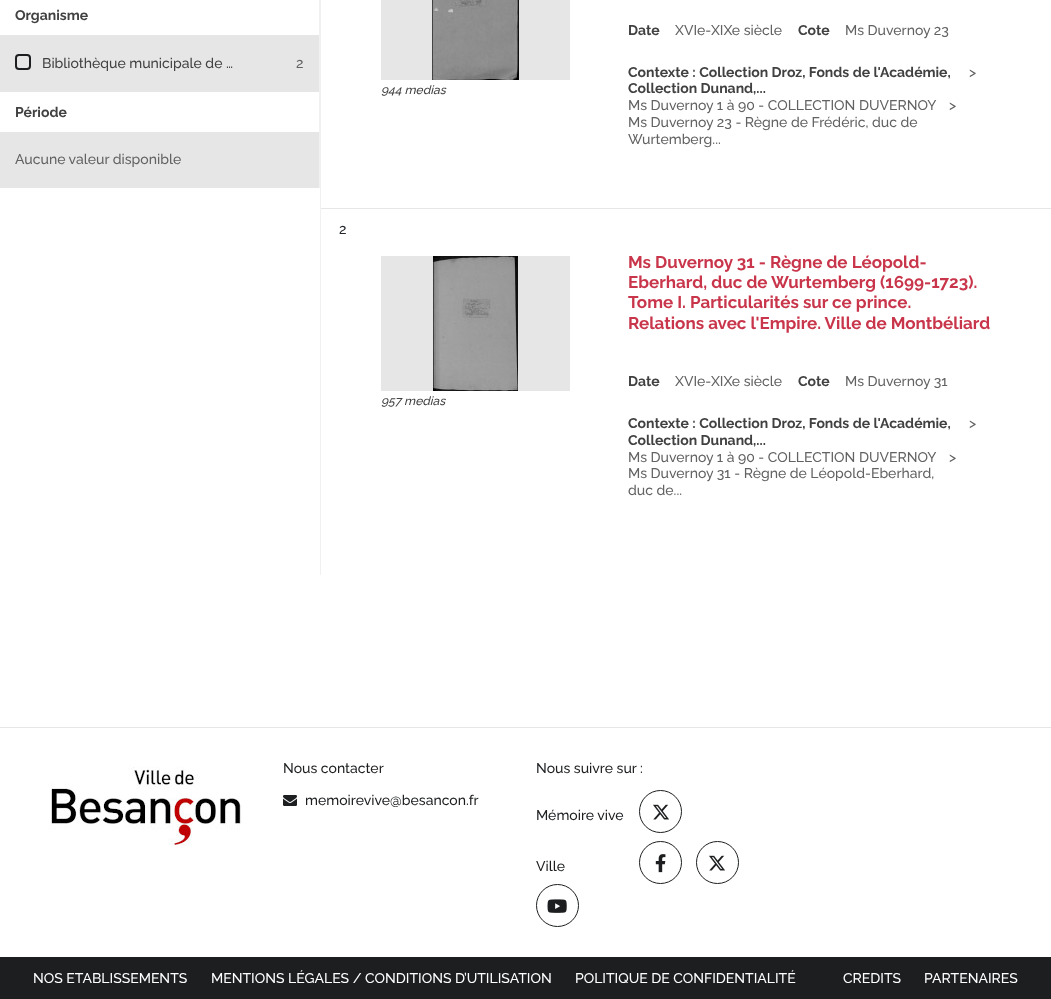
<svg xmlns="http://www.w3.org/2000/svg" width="1051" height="999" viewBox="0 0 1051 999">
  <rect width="100%" height="100%" fill="#fff"/>
  <path d="M0 35h319v153H0z" fill="#e6e6e6"/>
  <path d="M319 0h1v188H319z" fill="#f1f1f1"/>
  <rect x="16" y="55" width="14" height="14" rx="3" fill="none" stroke="#1c1e20" stroke-width="2"/>
  <path d="M0 92h319v40H0z" fill="#fff"/>
  <path d="M320 0h1v575H320z" fill="#f1f1f1"/>
  <path d="M321 208h730v1H321z" fill="#e6e6e6"/>
  <path d="M381 0h189v80H381z" fill="#e6e6e6"/>
  <image x="432" y="0" width="87" height="80" href="img/1.png"/>
  <path d="M381 256h189v135H381z" fill="#e6e6e6"/>
  <image x="433" y="256" width="85" height="135" href="img/2.png"/>
  <path d="M0 727h1051v1H0z" fill="#e6e6e6"/>
  <image x="48" y="766" width="194" height="80" href="img/3.png"/>
  <image x="283" y="795" width="14" height="11" href="img/4.png"/>
  <circle cx="660.5" cy="811.5" r="21" fill="none" stroke="#1c1e20"/>
  <image x="653" y="804" width="16" height="16" href="img/5.png"/>
  <circle cx="660.5" cy="862.5" r="21" fill="none" stroke="#1c1e20"/>
  <image x="655" y="854" width="11" height="19" href="img/6.png"/>
  <circle cx="717.5" cy="862.5" r="21" fill="none" stroke="#1c1e20"/>
  <image x="709" y="855" width="16" height="16" href="img/5.png"/>
  <circle cx="557.5" cy="905.5" r="21" fill="none" stroke="#1c1e20"/>
  <image x="547" y="899" width="20" height="14" href="img/7.png"/>
  <path d="M0 957h1051v42H0z" fill="#1c1e20"/>
  <text x="15" y="20" font-family="Raleway" font-size="14" font-weight="bold" fill="#414141">Organisme</text>
  <text x="42" y="68" font-family="Raleway" font-size="14" font-weight="500" fill="#414141">Bibliothèque municipale de …</text>
  <text x="296" y="68" font-family="Raleway" font-size="14" font-weight="500" fill="#626262">2</text>
  <text x="15" y="117" font-family="Raleway" font-size="14" font-weight="bold" fill="#414141">Période</text>
  <text x="15" y="164" font-family="Raleway" font-size="14" font-weight="500" fill="#626262">Aucune valeur disponible</text>
  <text x="381" y="94" font-family="Raleway" font-size="12" font-weight="500" font-style="italic" fill="#414141">944 medias</text>
  <text x="628" y="35" font-family="Raleway" font-size="14" font-weight="bold" fill="#414141">Date</text>
  <text x="675" y="35" font-family="Raleway" font-size="14" font-weight="500" fill="#626262">XVIe-XIXe siècle</text>
  <text x="798" y="35" font-family="Raleway" font-size="14" font-weight="bold" fill="#414141">Cote</text>
  <text x="845" y="35" font-family="Raleway" font-size="14" font-weight="500" fill="#626262">Ms Duvernoy 23</text>
  <g font-family="Raleway" font-size="14" font-weight="bold" fill="#414141">
    <text x="628" y="77">Contexte : Collection Droz, Fonds de l'Académie,</text>
    <text x="628" y="93">Collection Dunand,...</text>
  </g>
  <g font-family="Raleway" font-size="14" font-weight="500" fill="#626262">
    <text x="969" y="77">&gt;</text>
    <text x="628" y="110">Ms Duvernoy 1 à 90 - COLLECTION DUVERNOY</text>
    <text x="949" y="110">&gt;</text>
    <text x="628" y="127">Ms Duvernoy 23 - Règne de Frédéric, duc de</text>
    <text x="628" y="144">Wurtemberg...</text>
  </g>
  <text x="339" y="234" font-family="Raleway" font-size="14" font-weight="500" fill="#212529">2</text>
  <text x="381" y="405" font-family="Raleway" font-size="12" font-weight="500" font-style="italic" fill="#414141">957 medias</text>
  <g font-family="Raleway" font-size="17" font-weight="bold" fill="#c9364b">
    <text x="628" y="268">Ms Duvernoy 31 - Règne de Léopold-</text>
    <text x="628" y="288">Eberhard, duc de Wurtemberg (1699-1723).</text>
    <text x="628" y="308">Tome I. Particularités sur ce prince.</text>
    <text x="628" y="329">Relations avec l'Empire. Ville de Montbéliard</text>
  </g>
  <text x="628" y="386" font-family="Raleway" font-size="14" font-weight="bold" fill="#414141">Date</text>
  <text x="675" y="386" font-family="Raleway" font-size="14" font-weight="500" fill="#626262">XVIe-XIXe siècle</text>
  <text x="798" y="386" font-family="Raleway" font-size="14" font-weight="bold" fill="#414141">Cote</text>
  <text x="845" y="386" font-family="Raleway" font-size="14" font-weight="500" fill="#626262">Ms Duvernoy 31</text>
  <g font-family="Raleway" font-size="14" font-weight="bold" fill="#414141">
    <text x="628" y="428">Contexte : Collection Droz, Fonds de l'Académie,</text>
    <text x="628" y="445">Collection Dunand,...</text>
  </g>
  <g font-family="Raleway" font-size="14" font-weight="500" fill="#626262">
    <text x="969" y="428">&gt;</text>
    <text x="628" y="462">Ms Duvernoy 1 à 90 - COLLECTION DUVERNOY</text>
    <text x="949" y="462">&gt;</text>
    <text x="628" y="478">Ms Duvernoy 31 - Règne de Léopold-Eberhard,</text>
    <text x="628" y="495">duc de...</text>
  </g>
  <g font-family="Raleway" font-size="14" font-weight="500" fill="#1c1e20">
    <text x="283" y="773">Nous contacter</text>
    <text x="305" y="805">memoirevive@besancon.fr</text>
    <text x="536" y="773">Nous suivre sur :</text>
    <text x="536" y="820">Mémoire vive</text>
    <text x="536" y="871">Ville</text>
  </g>
  <g font-family="Raleway" font-size="14" font-weight="500" fill="#fff">
    <text x="33" y="983">NOS ETABLISSEMENTS</text>
    <text x="211" y="983">MENTIONS LÉGALES / CONDITIONS D’UTILISATION</text>
    <text x="575" y="983">POLITIQUE DE CONFIDENTIALITÉ</text>
    <text x="843" y="983">CREDITS</text>
    <text x="924" y="983">PARTENAIRES</text>
  </g>
</svg>
